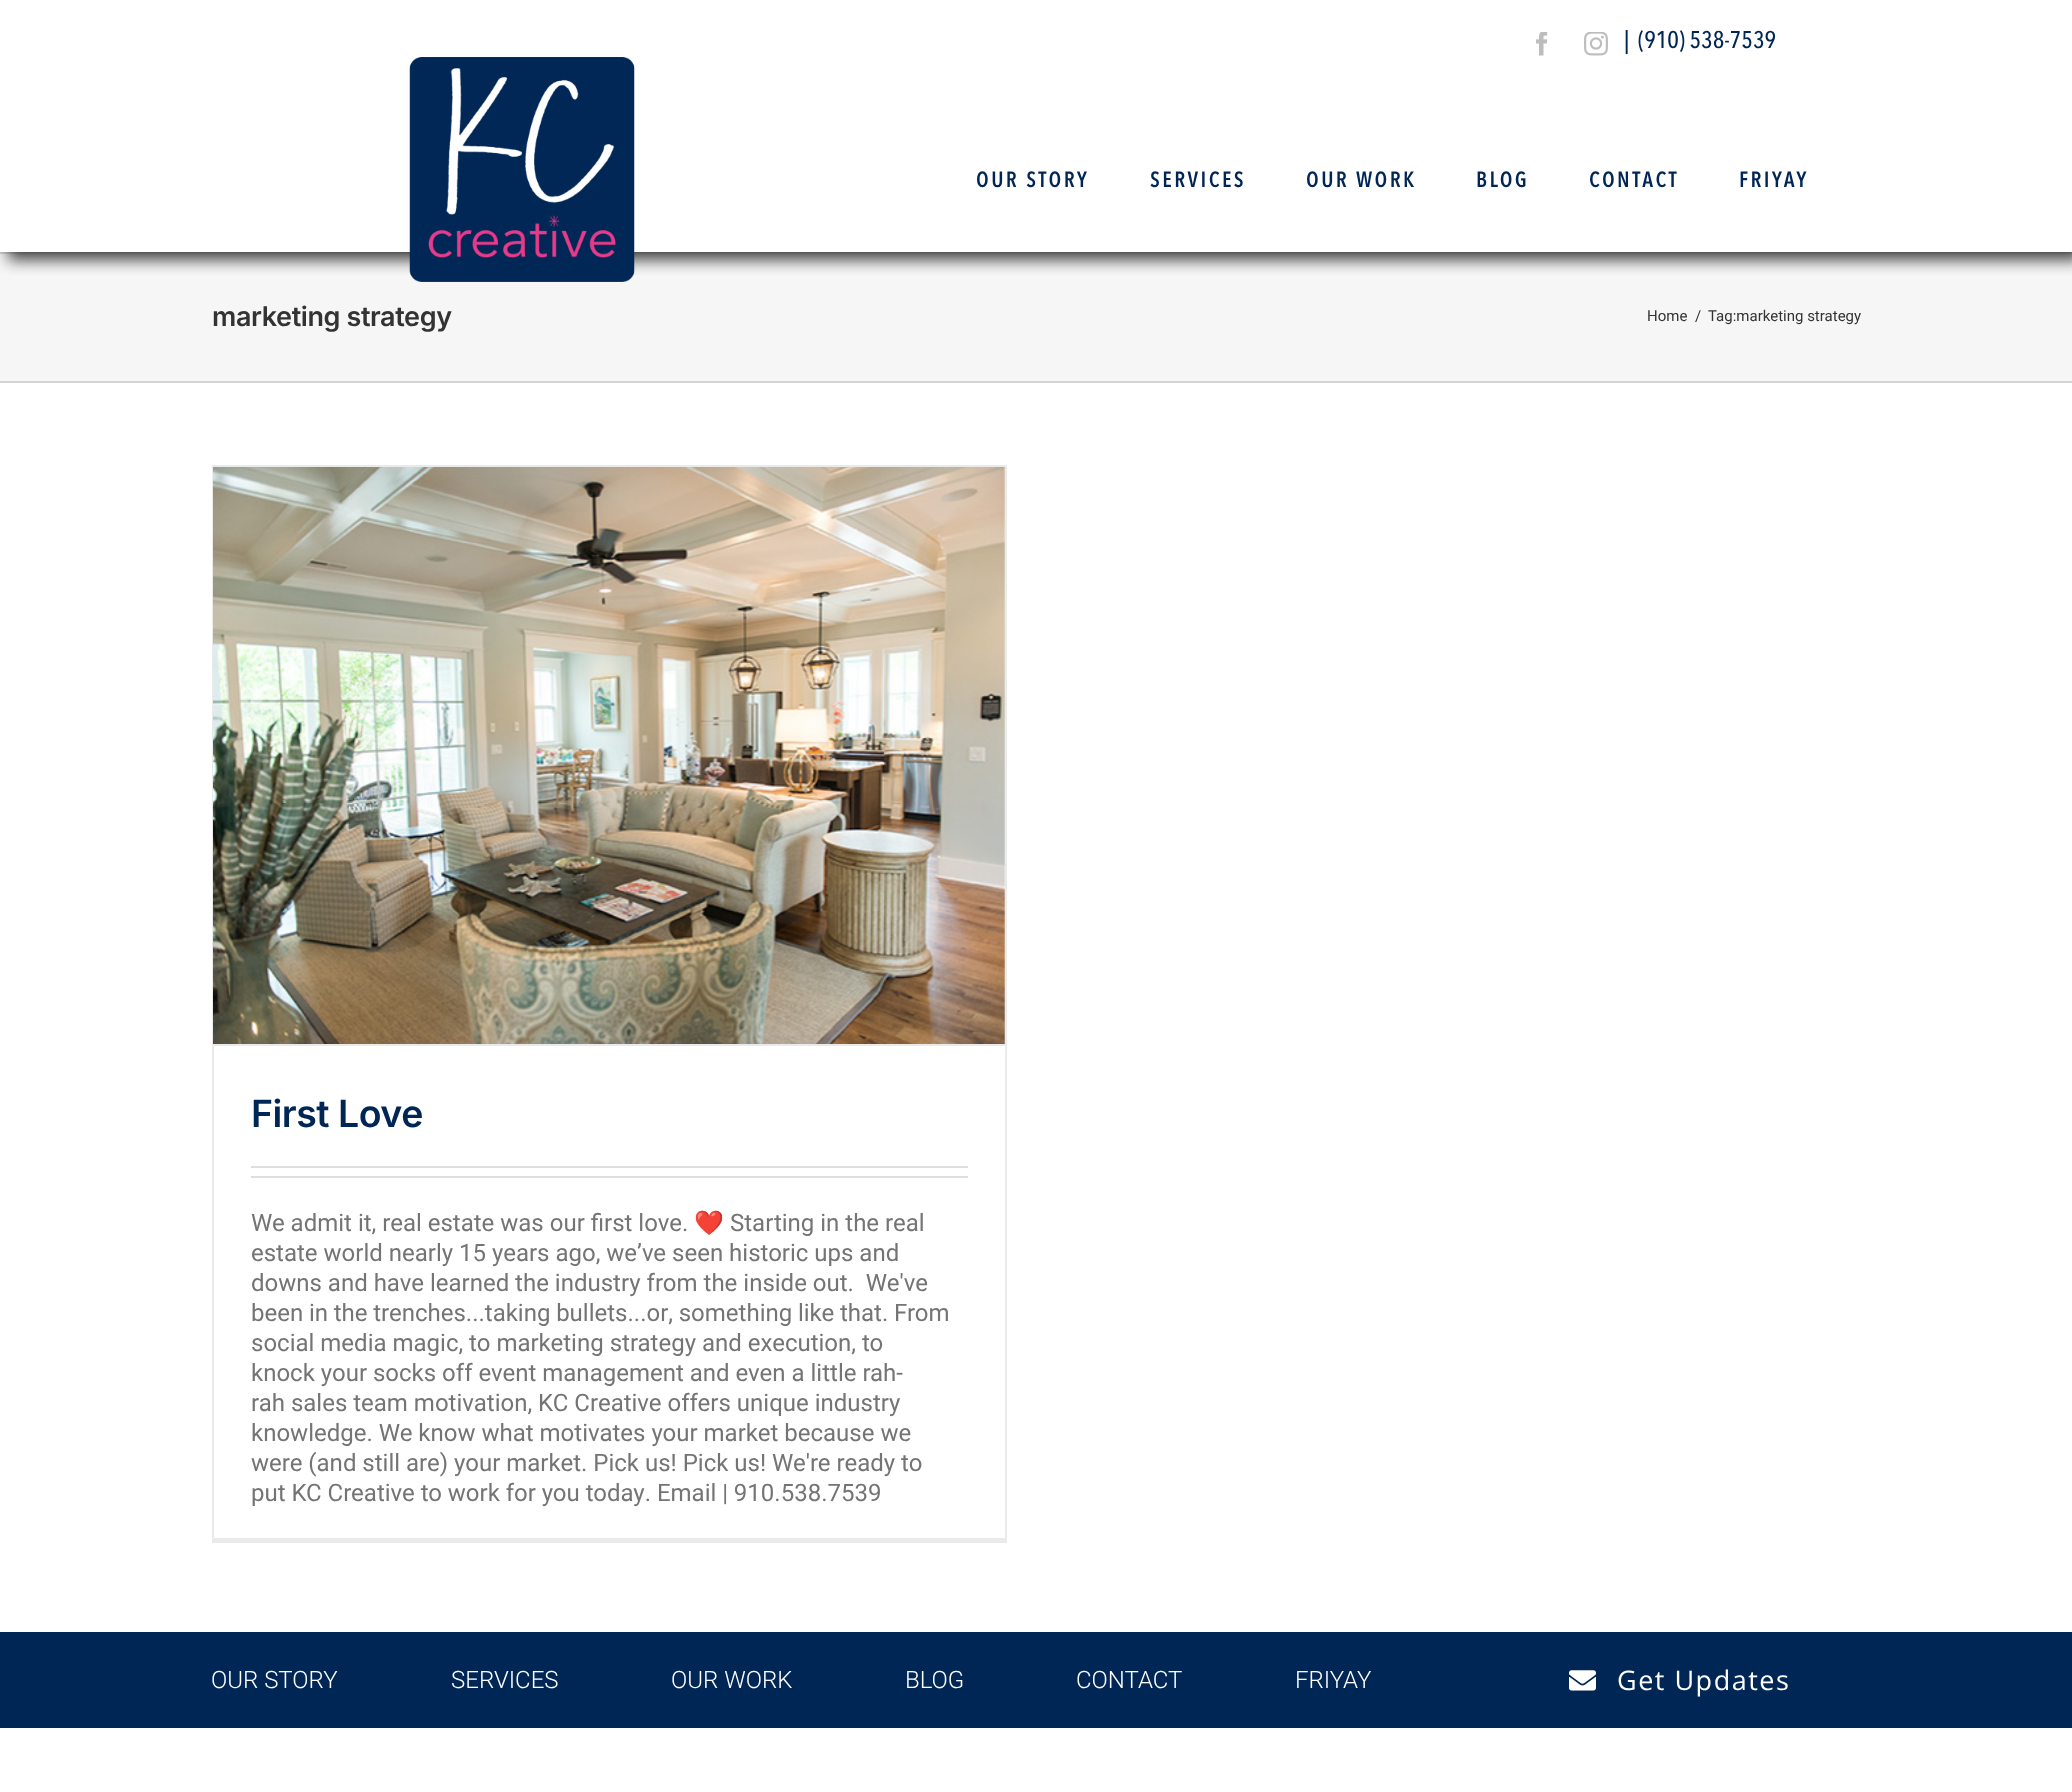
<svg xmlns="http://www.w3.org/2000/svg" width="2072" height="1792" viewBox="0 0 2072 1792">
  <defs>
    <clipPath id="clip1"><path d="M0 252h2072v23H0z"/></clipPath>
  </defs>
  <rect width="100%" height="100%" fill="#fff"/>
  <path d="M0 254h2072v127H0z" fill="#f6f6f6"/>
  <path d="M0 252h2072v2H0z" fill="#d2d3d4"/>
  <g clip-path="url(#clip1)">
    <path d="M8 8h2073v252H8z" fill="#444" filter="blur(7.5px)"/>
  </g>
  <image x="1536" y="32" width="12" height="24" href="img/1.png"/>
  <image x="1584" y="32" width="24" height="24" href="img/2.png"/>
  <image x="409" y="57" width="226" height="225" href="img/3.png"/>
  <path d="M0 381h2072v2H0z" fill="#d2d3d4"/>
  <path d="M212 465h795v2H212z" fill="#ebeaea"/>
  <path d="M1005 465h2v1077H1005z" fill="#ebeaea"/>
  <path d="M212 1538h795v5H212z" fill="#ebeaea"/>
  <path d="M212 465h2v1077H212z" fill="#ebeaea"/>
  <path d="M213 1044h792v2H213z" fill="#ebeaea"/>
  <image x="213" y="467" width="792" height="577" href="img/4.png"/>
  <path d="M251 1166h717v2H251z" fill="#e0dede"/>
  <path d="M251 1176h717v2H251z" fill="#e0dede"/>
  <path d="M0 1632h2072v96H0z" fill="#002656"/>
  <image x="1569" y="1670" width="27" height="21" href="img/5.png"/>
  <g font-family="Avenir Next" font-size="24" font-weight="500" fill="#002656">
    <text x="1624" y="48">|</text>
    <text x="1638" y="48">(910) 538-7539</text>
  </g>
  <g font-family="Avenir Next" font-size="21" font-weight="bold" letter-spacing="3" fill="#002656">
    <text x="976" y="187">OUR STORY</text>
    <text x="1150" y="187">SERVICES</text>
    <text x="1306" y="187">OUR WORK</text>
    <text x="1476" y="187">BLOG</text>
    <text x="1589" y="187">CONTACT</text>
    <text x="1739" y="187">FRIYAY</text>
  </g>
  <text x="212" y="326" font-family="Inter" font-size="27" font-weight="600" letter-spacing="-0.4" fill="#333">marketing strategy</text>
  <g font-family="Roboto" font-size="15" fill="#333">
    <text x="1647" y="321">Home</text>
    <text x="1695" y="321">/</text>
    <text x="1708" y="321">Tag:marketing strategy</text>
  </g>
  <text x="251" y="1127" font-family="Inter" font-size="37.5" font-weight="600" letter-spacing="-0.5" fill="#002656">First Love</text>
  <text x="251" y="1231" font-family="Roboto" font-size="24" fill="#747474">We admit it, real estate was our first love.</text>
  <text x="694" y="1231" font-family="Noto Color Emoji" font-size="24" fill="#747474">❤️</text>
  <g font-family="Roboto" font-size="24" fill="#747474">
    <text x="730" y="1231">Starting in the real</text>
    <text x="251" y="1261">estate world nearly 15 years ago, we’ve seen historic ups and</text>
    <text x="251" y="1291" xml:space="preserve">downs and have learned the industry from the inside out.  We've</text>
    <text x="251" y="1321" word-spacing="-0.25">been in the trenches...taking bullets...or, something like that. From</text>
    <text x="251" y="1351">social media magic, to marketing strategy and execution, to</text>
    <text x="251" y="1381">knock your socks off event management and even a little rah-</text>
    <text x="251" y="1411">rah sales team motivation, KC Creative offers unique industry</text>
    <text x="251" y="1441">knowledge. We know what motivates your market because we</text>
    <text x="251" y="1471">were (and still are) your market. Pick us! Pick us! We're ready to</text>
    <text x="251" y="1501" word-spacing="-0.1">put KC Creative to work for you today. Email | 910.538.7539</text>
  </g>
  <g font-family="Roboto" font-size="24" font-weight="300" fill="#fff">
    <text x="211" y="1688">OUR STORY</text>
    <text x="451" y="1688">SERVICES</text>
    <text x="671" y="1688">OUR WORK</text>
    <text x="905" y="1688">BLOG</text>
    <text x="1076" y="1688">CONTACT</text>
    <text x="1295" y="1688">FRIYAY</text>
  </g>
  <text x="1617" y="1690" font-family="Open Sans" font-size="27" letter-spacing="1.5" fill="#fff">Get Updates</text>
</svg>
